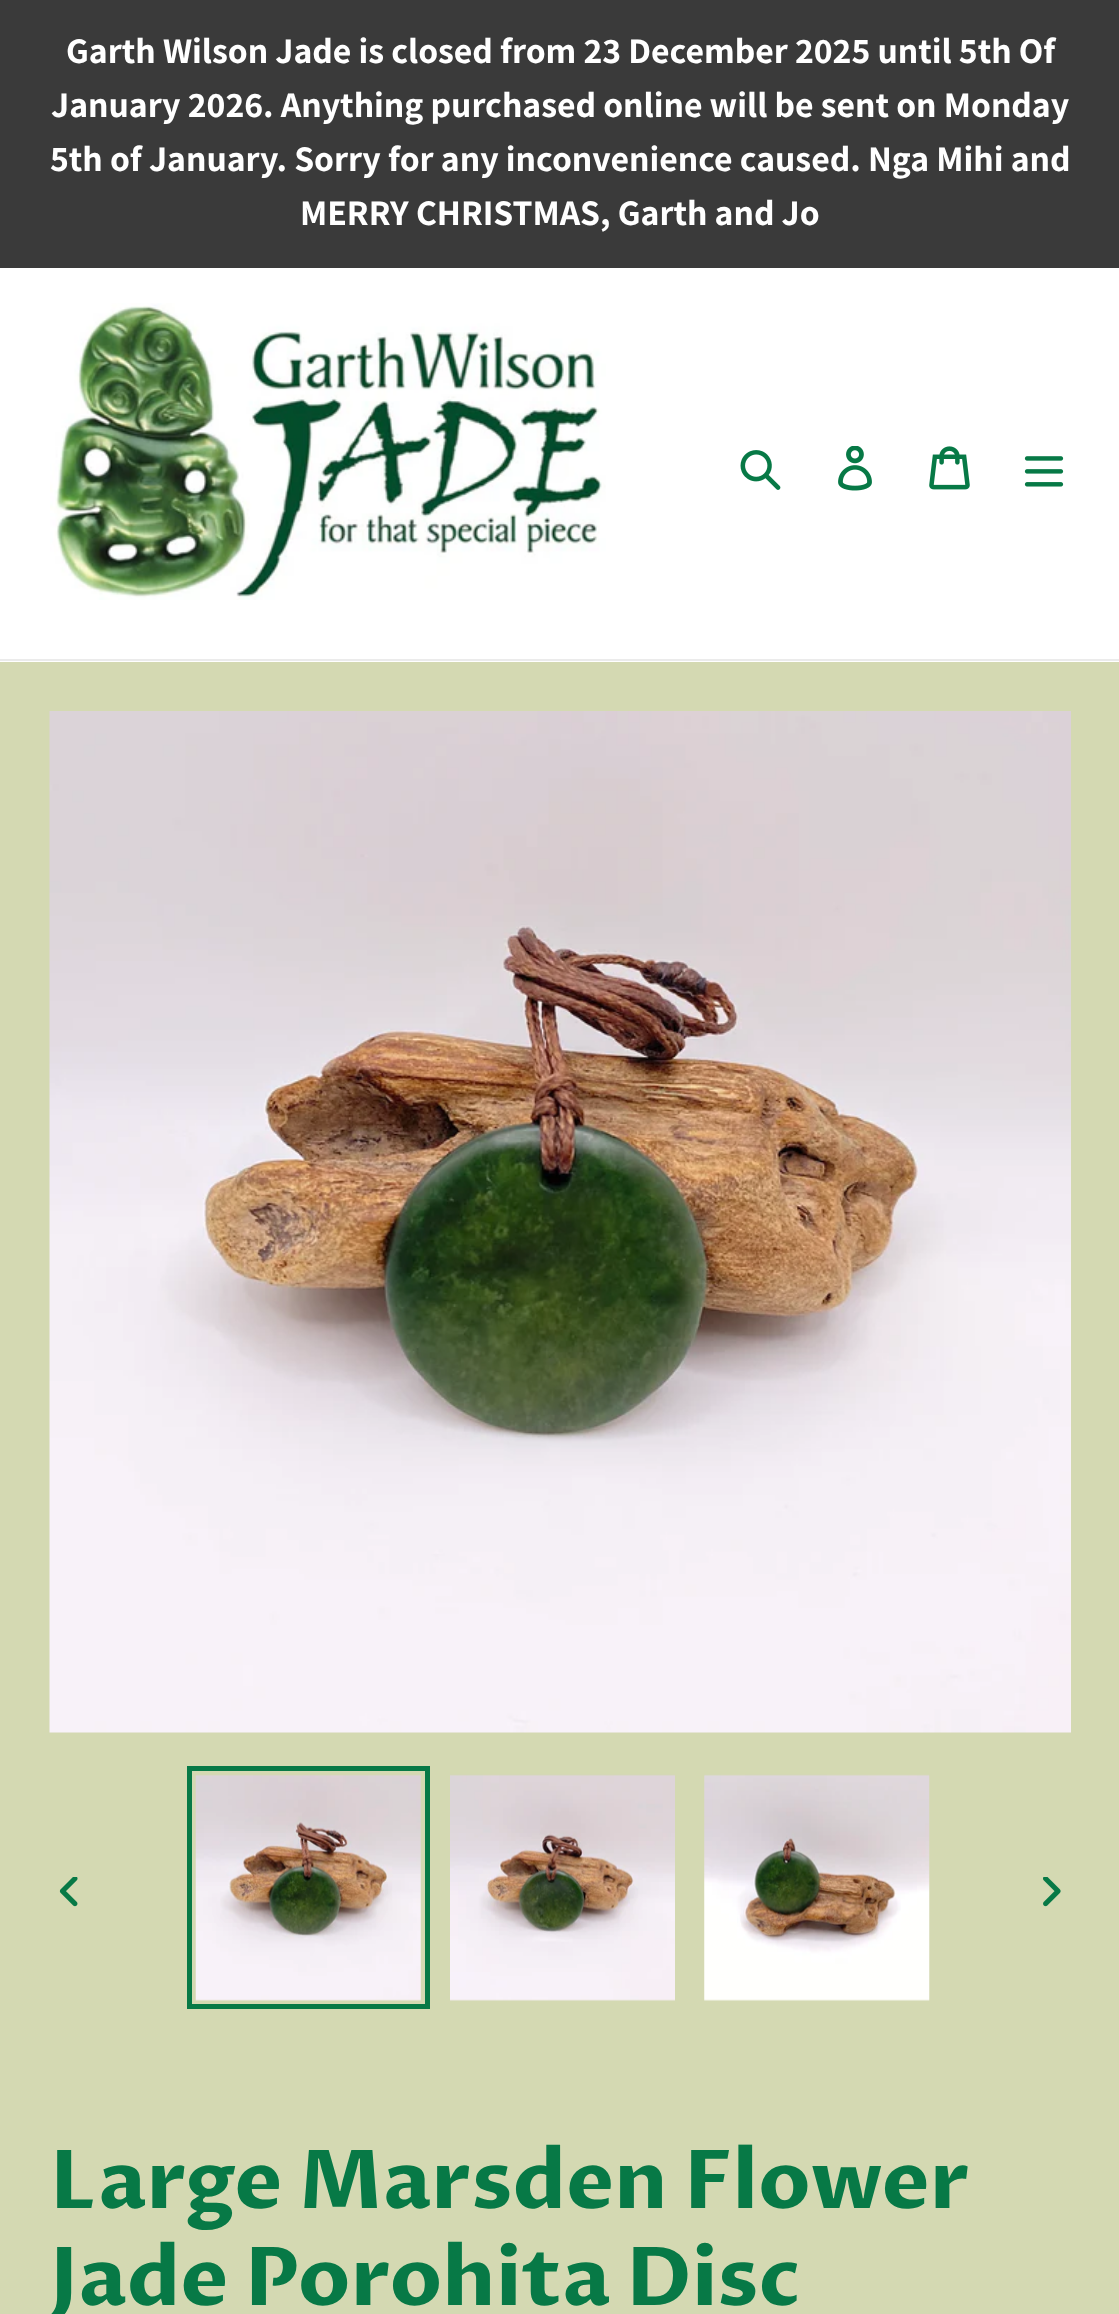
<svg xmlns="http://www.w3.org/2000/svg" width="1119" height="2314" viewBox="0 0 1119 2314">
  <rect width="100%" height="100%" fill="#d4d9b2"/>
  <path d="M0 0h1119v268H0z" fill="#3a3a3a"/>
  <path d="M0 268h1119v394H0z" fill="#fff"/>
  <path d="M0 659h1119v2H0z" fill="#ebebeb"/>
  <image x="50" y="303" width="556" height="297" href="img/1.png"/>
  <image x="740" y="450" width="41" height="40" href="img/2.png"/>
  <image x="838" y="446" width="34" height="45" href="img/3.png"/>
  <image x="929" y="446" width="41" height="44" href="img/4.png"/>
  <image x="1024" y="456" width="40" height="31" href="img/5.png"/>
  <image x="49" y="711" width="1022" height="1022" href="img/6.png"/>
  <image x="59" y="1877" width="19" height="30" href="img/7.png"/>
  <path d="M189.5 1768.5h238v238H189.5z" fill="none" stroke="#077946" stroke-width="5"/>
  <image x="195" y="1774" width="226" height="227" href="img/8.png"/>
  <image x="450" y="1774" width="225" height="227" href="img/9.png"/>
  <image x="704" y="1774" width="226" height="227" href="img/10.png"/>
  <image x="1043" y="1877" width="18" height="30" href="img/11.png"/>
  <g font-family="Assistant" font-size="36" font-weight="bold" fill="#fff">
    <text x="66" y="63">Garth Wilson Jade is closed from 23 December 2025 until 5th Of</text>
    <text x="51" y="117">January 2026. Anything purchased online will be sent on Monday</text>
    <text x="50" y="171">5th of January. Sorry for any inconvenience caused. Nga Mihi and</text>
    <text x="300" y="225">MERRY CHRISTMAS, Garth and Jo</text>
  </g>
  <g font-family="Proza Libre" font-size="81" font-weight="bold" fill="#077946">
    <text x="50" y="2208">Large Marsden Flower</text>
    <text x="50" y="2305">Jade Porohita Disc</text>
  </g>
</svg>
